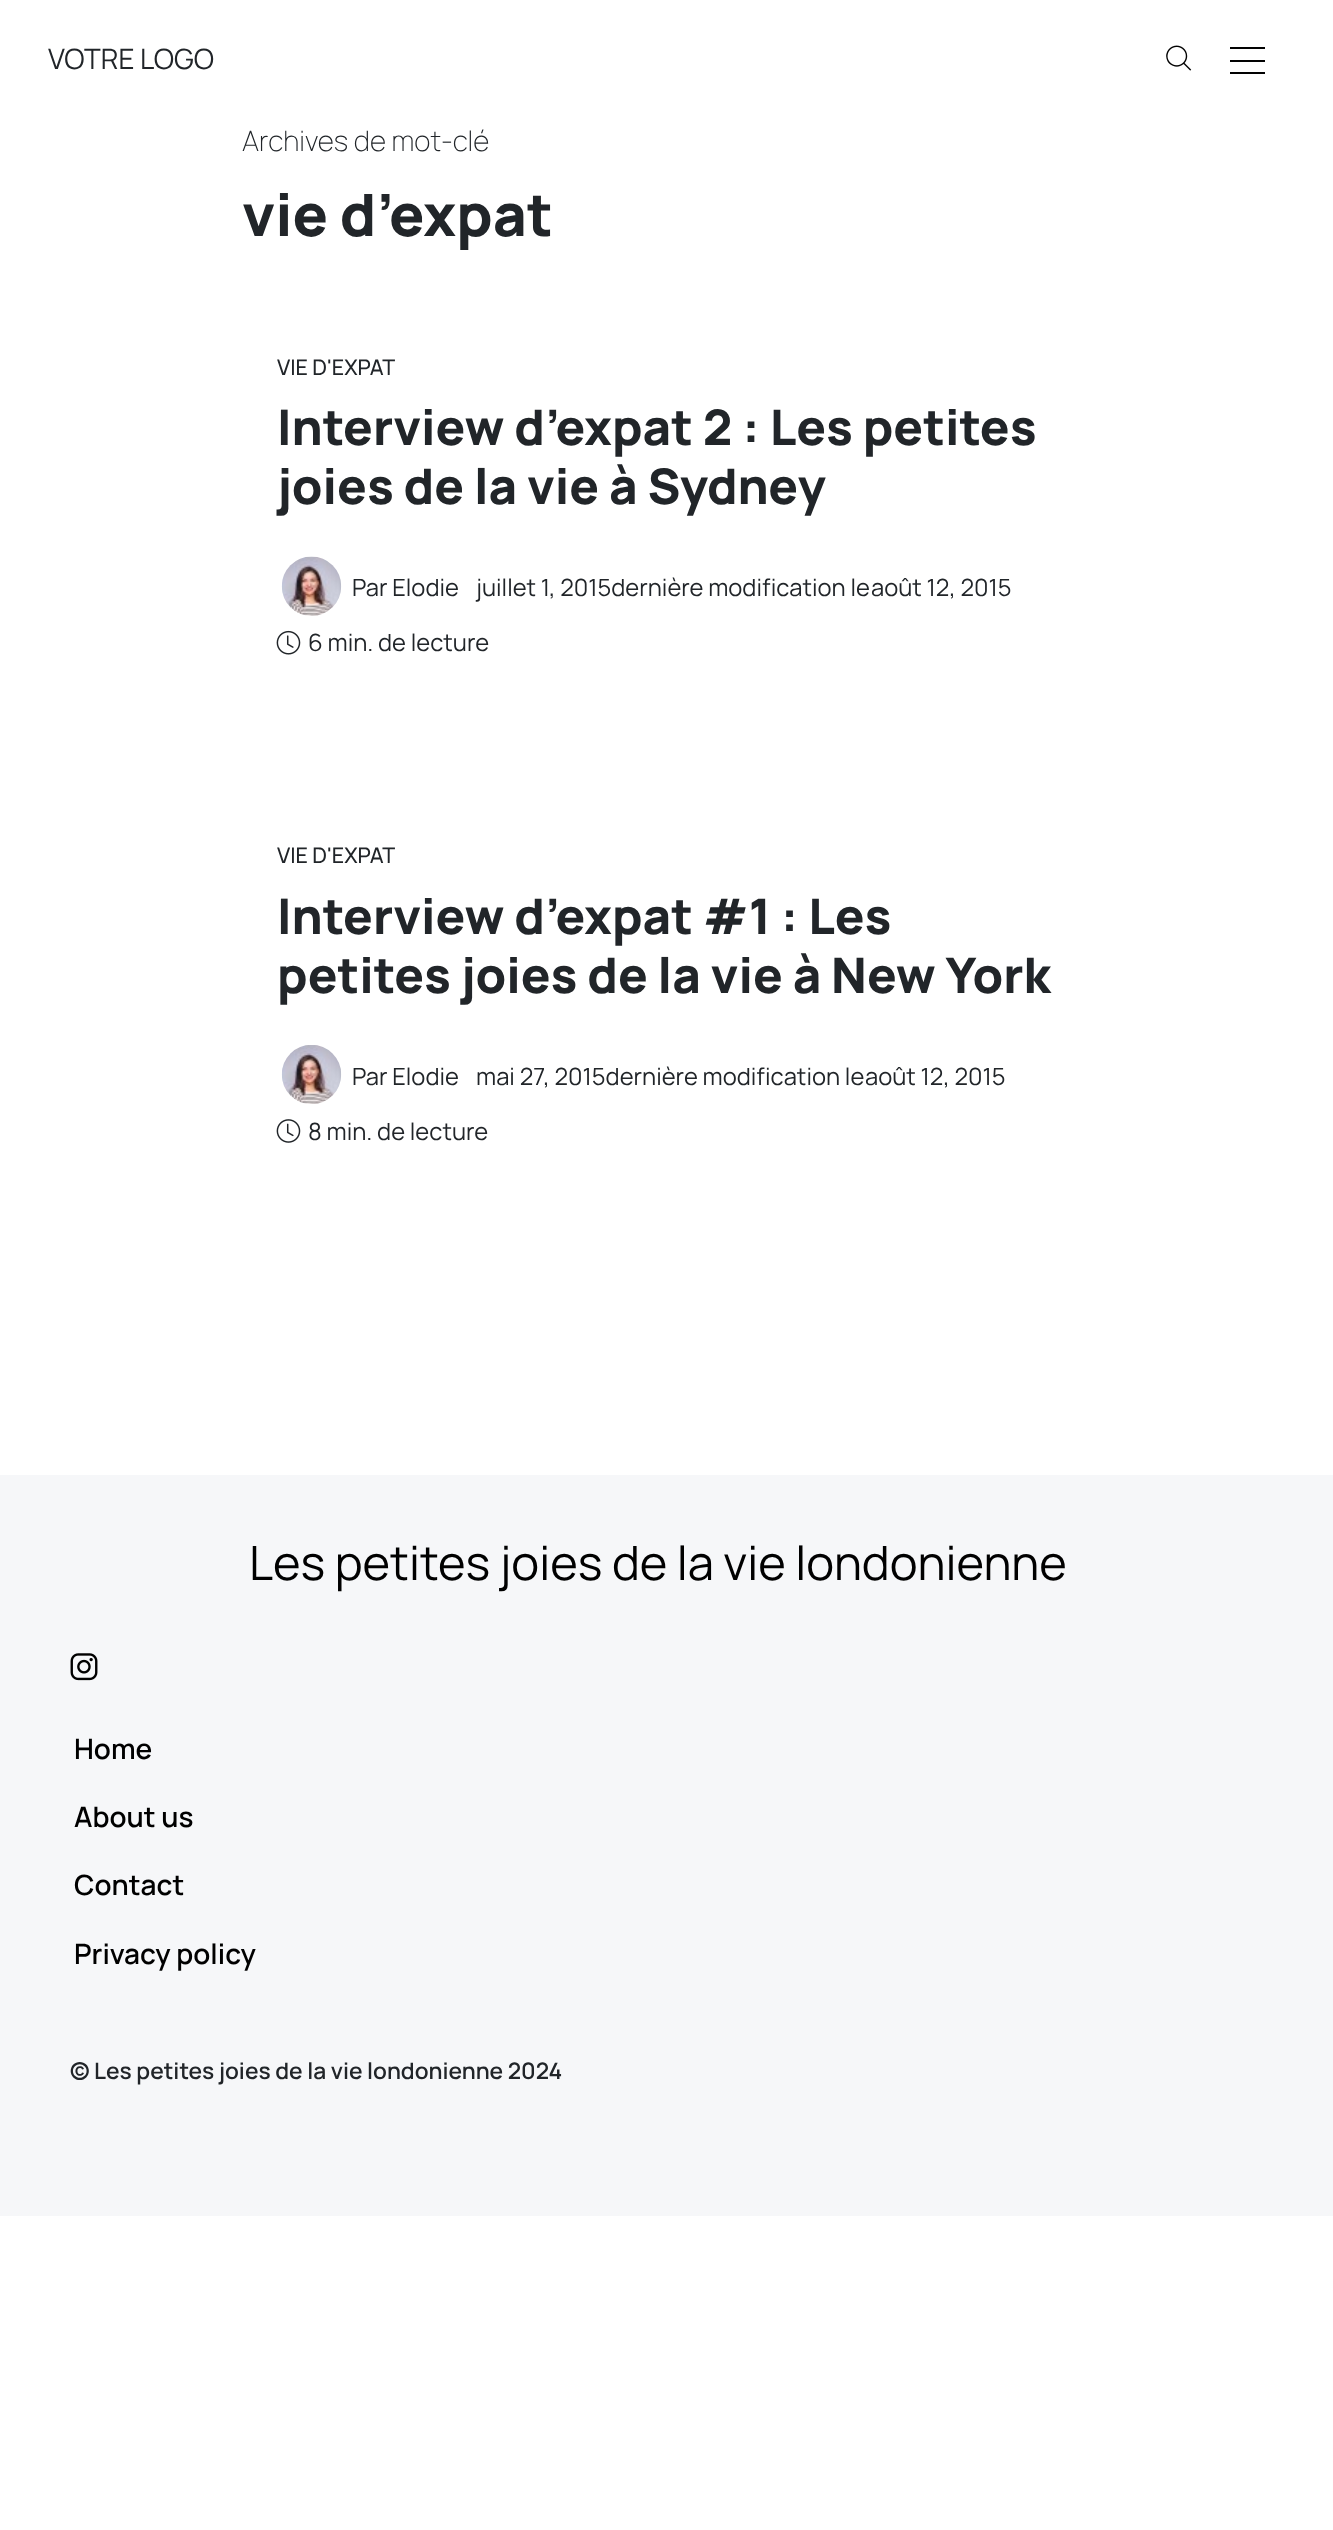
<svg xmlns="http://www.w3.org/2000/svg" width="1333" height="2530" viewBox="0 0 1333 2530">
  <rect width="100%" height="100%" fill="#fff"/>
  <image x="1166" y="45" width="26" height="26" href="img/1.png"/>
  <path d="M1230 60h35v2H1230z" fill="#020202"/>
  <path d="M1230 47h35v2H1230z" fill="#020202"/>
  <path d="M1230 72h35v2H1230z" fill="#020202"/>
  <image x="281" y="556" width="61" height="60" href="img/2.png"/>
  <image x="276" y="630" width="25" height="25" href="img/3.png"/>
  <image x="281" y="1045" width="61" height="59" href="img/4.png"/>
  <image x="276" y="1119" width="25" height="24" href="img/5.png"/>
  <path d="M0 1475h1333v741H0z" fill="#f6f7f9"/>
  <image x="70" y="1653" width="28" height="28" href="img/6.png"/>
  <text x="48" y="69" font-family="Manrope" font-size="28" fill="#212529">VOTRE LOGO</text>
  <text x="242" y="151" font-family="Manrope" font-size="28" font-weight="200" fill="#212529">Archives de mot-clé</text>
  <text x="242" y="236" font-family="Manrope" font-size="58.5" font-weight="800" fill="#212529">vie d’expat</text>
  <text x="277" y="375" font-family="Manrope" font-size="21.5" font-weight="500" fill="#212529">VIE D'EXPAT</text>
  <g font-family="Manrope" font-size="49.1" font-weight="800" fill="#212529">
    <text x="277" y="445">Interview d’expat 2 : Les petites</text>
    <text x="277" y="504">joies de la vie à Sydney</text>
  </g>
  <g font-family="Manrope" font-size="23.75" fill="#212529">
    <text x="352" y="596">Par Elodie</text>
    <text x="476" y="596">juillet 1, 2015dernière modification le</text>
    <text x="871" y="596">août 12, 2015</text>
    <text x="308" y="651">6 min. de lecture</text>
  </g>
  <text x="277" y="863" font-family="Manrope" font-size="21.5" font-weight="500" fill="#212529">VIE D'EXPAT</text>
  <g font-family="Manrope" font-size="49.1" font-weight="800" fill="#212529">
    <text x="277" y="934">Interview d’expat #1 : Les</text>
    <text x="277" y="993">petites joies de la vie à New York</text>
  </g>
  <g font-family="Manrope" font-size="23.75" fill="#212529">
    <text x="352" y="1085">Par Elodie</text>
    <text x="476" y="1085">mai 27, 2015dernière modification le</text>
    <text x="865" y="1085">août 12, 2015</text>
    <text x="308" y="1140">8 min. de lecture</text>
  </g>
  <text x="249" y="1580" font-family="Manrope" font-size="47.1" fill="#000">Les petites joies de la vie londonienne</text>
  <g font-family="Manrope" font-size="28" font-weight="600" fill="#000">
    <text x="74" y="1759">Home</text>
    <text x="74" y="1827">About us</text>
    <text x="74" y="1895">Contact</text>
    <text x="74" y="1964">Privacy policy</text>
  </g>
  <text x="70" y="2079" font-family="Manrope" font-size="22.75" font-weight="600" fill="#212529">© Les petites joies de la vie londonienne 2024</text>
</svg>
